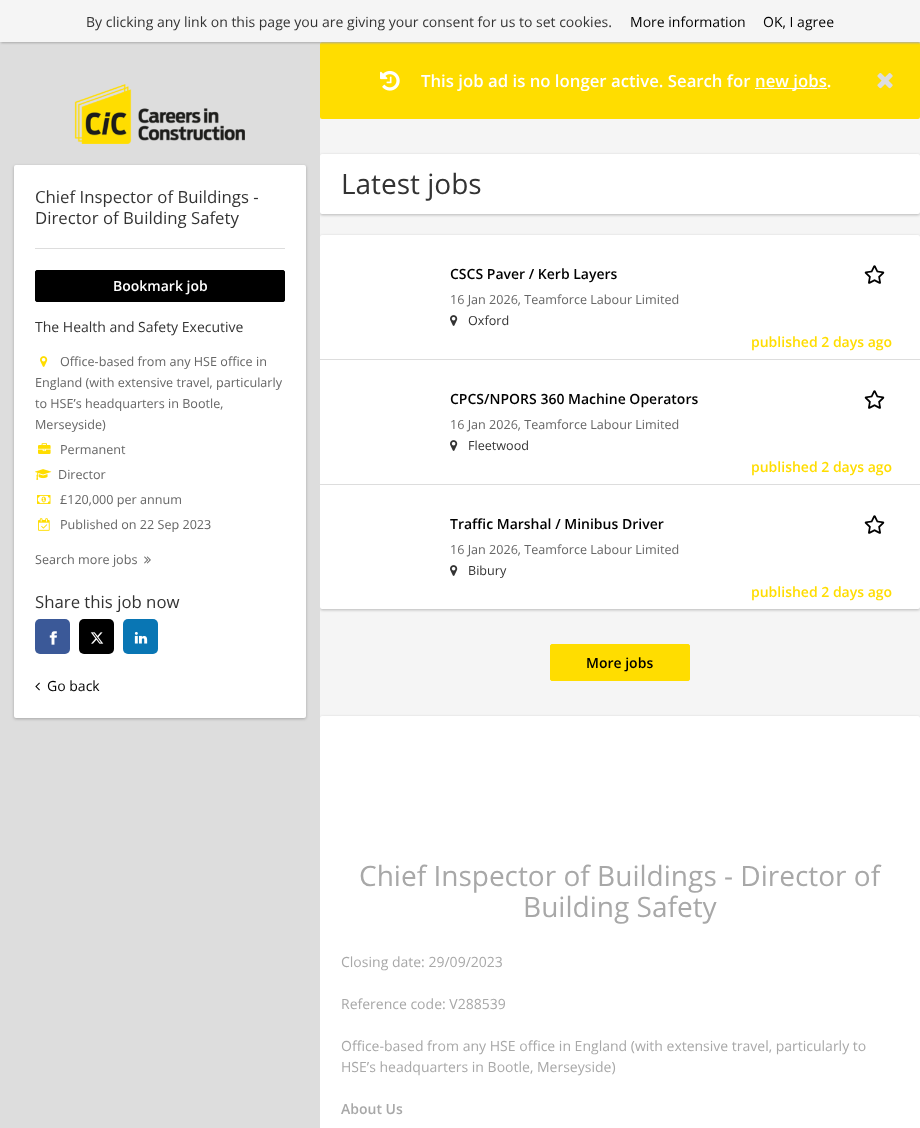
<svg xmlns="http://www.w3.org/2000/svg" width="920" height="1128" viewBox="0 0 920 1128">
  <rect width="100%" height="100%" fill="#f5f5f5"/>
  <rect x="320" y="155" width="600" height="60" rx="2" fill="#00000040" filter="blur(1.5px)"/>
  <rect x="320" y="236" width="600" height="374" rx="2" fill="#00000040" filter="blur(1.5px)"/>
  <rect x="320" y="717" width="600" height="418" rx="2" fill="#00000040" filter="blur(1.5px)"/>
  <path d="M0 42h320v1086H0z" fill="#ddd"/>
  <rect x="320" y="42" width="600" height="77" rx="2" fill="#fd0"/>
  <path d="M1 1h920v42H1z" fill="#a8a8a8" filter="blur(1px)"/>
  <path d="M0 0h920v42H0z" fill="#f5f5f5"/>
  <image x="74" y="84" width="171" height="60" href="img/1.png"/>
  <rect x="14" y="166" width="292" height="553" rx="2" fill="#00000040" filter="blur(1.5px)"/>
  <rect x="14" y="165" width="292" height="553" rx="2" fill="#fff"/>
  <path d="M35 248h250v1H35z" fill="#ddd"/>
  <rect x="35.5" y="270.5" width="249" height="31" rx="1.5" fill="#000" stroke="#000"/>
  <image x="40" y="356" width="8" height="11" href="img/2.png"/>
  <image x="38" y="443" width="13" height="11" href="img/3.png"/>
  <image x="35" y="469" width="17" height="11" href="img/4.png"/>
  <image x="37" y="495" width="14" height="9" href="img/5.png"/>
  <image x="38" y="518" width="12" height="13" href="img/6.png"/>
  <image x="144" y="556" width="7" height="8" href="img/7.png"/>
  <rect x="35" y="619" width="35" height="35" rx="5" fill="#3b5998"/>
  <image x="49" y="631" width="8" height="14" href="img/8.png"/>
  <rect x="79" y="619" width="35" height="35" rx="5" fill="#000"/>
  <image x="90" y="632" width="14" height="12" href="img/9.png"/>
  <rect x="123" y="619" width="35" height="35" rx="5" fill="#0976b4"/>
  <image x="134" y="631" width="14" height="13" href="img/10.png"/>
  <image x="35" y="682" width="5" height="9" href="img/11.png"/>
  <image x="380" y="70" width="20" height="21" href="img/12.png"/>
  <path d="M755 88h72v1H755z" fill="#fff"/>
  <image x="877" y="73" width="16" height="16" href="img/13.png"/>
  <rect x="320" y="154" width="600" height="60" rx="2" fill="#fff"/>
  <rect x="320" y="235" width="600" height="374" rx="2" fill="#fff"/>
  <image x="450" y="315" width="8" height="11" href="img/14.png"/>
  <image x="864" y="265" width="21" height="19" href="img/15.png"/>
  <path d="M320 359h600v1H320z" fill="#ddd"/>
  <image x="450" y="440" width="8" height="11" href="img/14.png"/>
  <image x="864" y="390" width="21" height="19" href="img/15.png"/>
  <path d="M320 484h600v1H320z" fill="#ddd"/>
  <image x="450" y="565" width="8" height="11" href="img/14.png"/>
  <image x="864" y="515" width="21" height="19" href="img/15.png"/>
  <rect x="550.5" y="644.5" width="139" height="36" rx="1.5" fill="#fd0" stroke="#fd0"/>
  <rect x="320" y="716" width="600" height="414" rx="2" fill="#fff"/>
  <text x="86" y="27" font-family="Open Sans" font-size="14" fill="#333">By clicking any link on this page you are giving your consent for us to set cookies.</text>
  <g font-family="Open Sans" font-size="14" fill="#000">
    <text x="630" y="27">More information</text>
    <text x="763" y="27">OK, I agree</text>
  </g>
  <g font-family="Open Sans" font-size="16.75" fill="#333">
    <text x="35" y="203">Chief Inspector of Buildings -</text>
    <text x="35" y="224">Director of Building Safety</text>
  </g>
  <text x="113" y="291" font-family="Open Sans" font-size="14" font-weight="600" fill="#fff">Bookmark job</text>
  <text x="35" y="332" font-family="Open Sans" font-size="14" fill="#333">The Health and Safety Executive</text>
  <g font-family="Open Sans" font-size="12.6" fill="#666">
    <text x="60" y="366">Office-based from any HSE office in</text>
    <text x="35" y="387">England (with extensive travel, particularly</text>
    <text x="35" y="408">to HSE’s headquarters in Bootle,</text>
    <text x="35" y="429">Merseyside)</text>
    <text x="60" y="454">Permanent</text>
    <text x="58" y="479">Director</text>
    <text x="60" y="504">£120,000 per annum</text>
    <text x="60" y="529">Published on 22 Sep 2023</text>
    <text x="35" y="564">Search more jobs</text>
  </g>
  <text x="35" y="608" font-family="Open Sans" font-size="16.75" fill="#333">Share this job now</text>
  <text x="47" y="691" font-family="Open Sans" font-size="14" fill="#000">Go back</text>
  <g font-family="Open Sans" font-size="16.75" font-weight="600" fill="#fff">
    <text x="421" y="87">This job ad is no longer active. Search for</text>
    <text x="755" y="87">new jobs.</text>
  </g>
  <text x="341" y="194" font-family="Open Sans" font-size="28" fill="#333">Latest jobs</text>
  <text x="450" y="279" font-family="Open Sans" font-size="14" font-weight="600" fill="#000">CSCS Paver / Kerb Layers</text>
  <text x="450" y="304" font-family="Open Sans" font-size="12.6" fill="#666">16 Jan 2026, Teamforce Labour Limited</text>
  <text x="468" y="325" font-family="Open Sans" font-size="12.6" fill="#333">Oxford</text>
  <text x="751" y="347" font-family="Open Sans" font-size="14" font-weight="600" fill="#fd0">published 2 days ago</text>
  <text x="450" y="404" font-family="Open Sans" font-size="14" font-weight="600" fill="#000">CPCS/NPORS 360 Machine Operators</text>
  <text x="450" y="429" font-family="Open Sans" font-size="12.6" fill="#666">16 Jan 2026, Teamforce Labour Limited</text>
  <text x="468" y="450" font-family="Open Sans" font-size="12.6" fill="#333">Fleetwood</text>
  <text x="751" y="472" font-family="Open Sans" font-size="14" font-weight="600" fill="#fd0">published 2 days ago</text>
  <text x="450" y="529" font-family="Open Sans" font-size="14" font-weight="600" fill="#000">Traffic Marshal / Minibus Driver</text>
  <text x="450" y="554" font-family="Open Sans" font-size="12.6" fill="#666">16 Jan 2026, Teamforce Labour Limited</text>
  <text x="468" y="575" font-family="Open Sans" font-size="12.6" fill="#333">Bibury</text>
  <text x="751" y="597" font-family="Open Sans" font-size="14" font-weight="600" fill="#fd0">published 2 days ago</text>
  <text x="586" y="668" font-family="Open Sans" font-size="14" font-weight="600" fill="#000">More jobs</text>
  <g font-family="Open Sans" font-size="28" fill="#a8a8a8">
    <text x="359" y="886">Chief Inspector of Buildings - Director of</text>
    <text x="523" y="917">Building Safety</text>
  </g>
  <g font-family="Open Sans" font-size="14" fill="#a8a8a8">
    <text x="341" y="967">Closing date: 29/09/2023</text>
    <text x="341" y="1009">Reference code: V288539</text>
    <text x="341" y="1051">Office-based from any HSE office in England (with extensive travel, particularly to</text>
    <text x="341" y="1072">HSE’s headquarters in Bootle, Merseyside)</text>
  </g>
  <text x="341" y="1114" font-family="Open Sans" font-size="14" font-weight="600" fill="#a8a8a8">About Us</text>
</svg>
